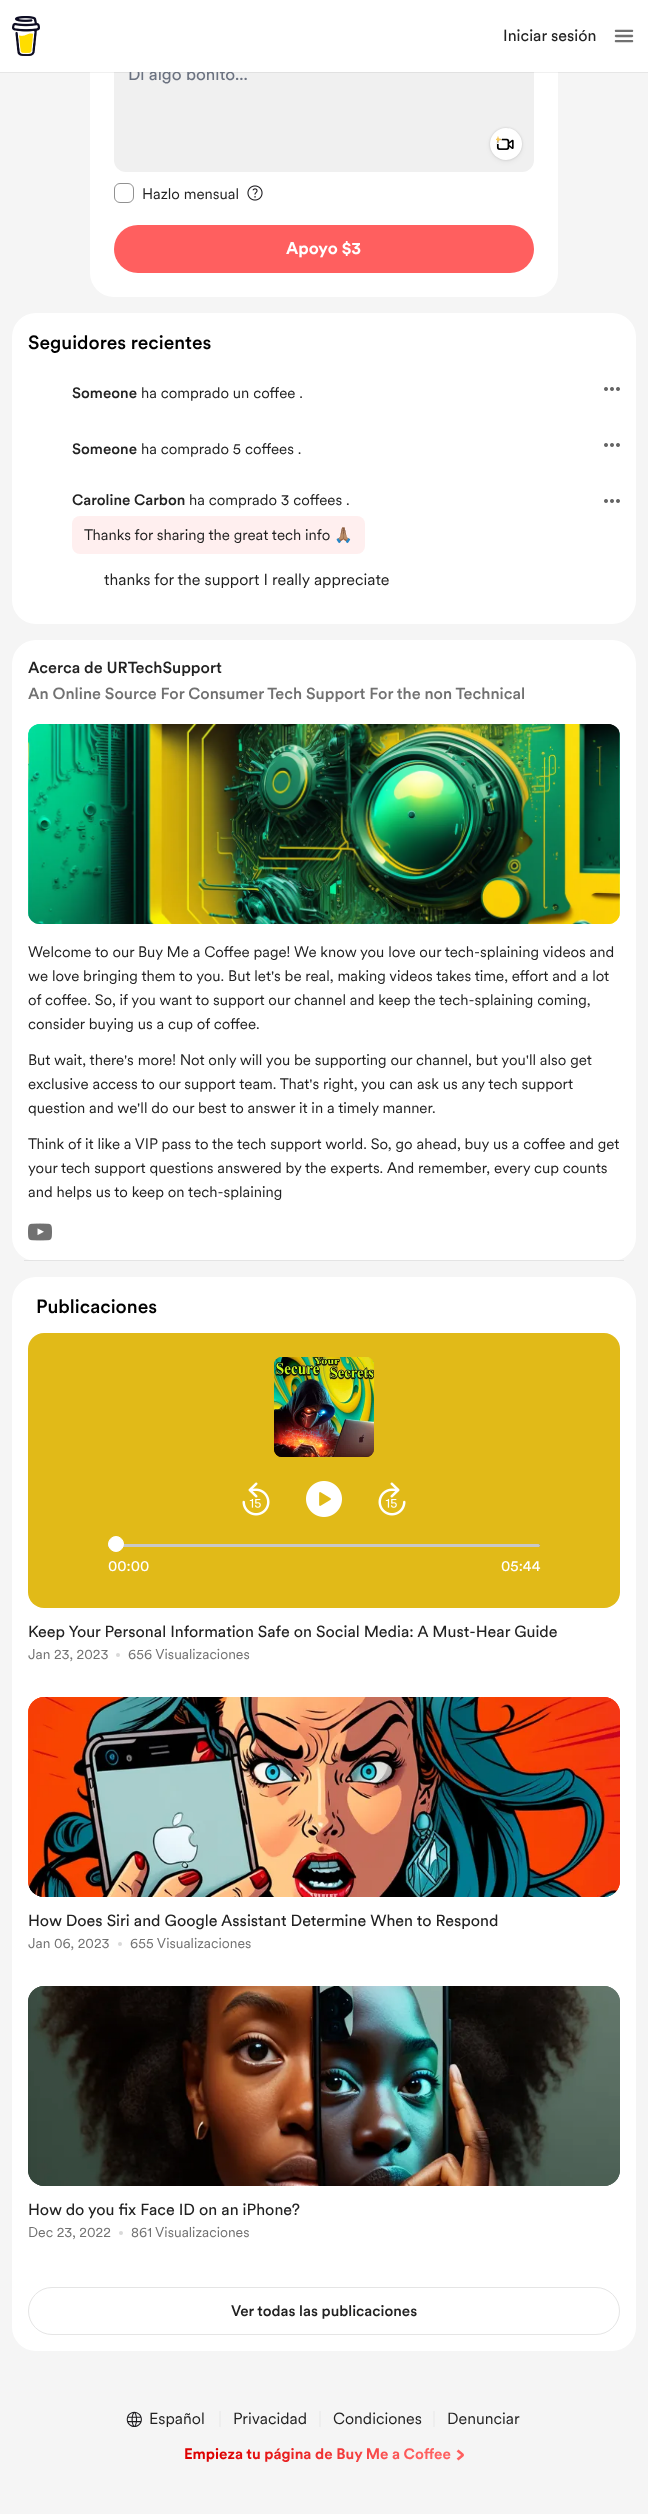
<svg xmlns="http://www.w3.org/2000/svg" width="648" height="2514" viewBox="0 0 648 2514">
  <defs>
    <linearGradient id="g1" gradientUnits="userSpaceOnUse" x1="201" y1="2402" x2="447" y2="2506"><stop offset="0.14" stop-color="#de0000"/><stop offset="0.82" stop-color="#ff5f5f"/></linearGradient>
  </defs>
  <rect width="100%" height="100%" fill="#f5f5f5"/>
  <rect x="90" y="-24" width="468" height="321" rx="24" fill="#fff"/>
  <rect x="114" y="48" width="420" height="124" rx="12" fill="#f0f0f0"/>
  <path d="M0 1h648v72H0z" fill="#0000000f" filter="blur(0.5px)"/>
  <rect x="490" y="130" width="32" height="32" rx="16" fill="#0000000d" filter="blur(2.5px)"/>
  <rect x="490" y="128" width="32" height="32" rx="16" fill="#00000026" filter="blur(1px)"/>
  <circle cx="506" cy="144" r="16" fill="#fff"/>
  <image x="496" y="138" width="18" height="12" href="img/4.png"/>
  <image x="496" y="136" width="6" height="8" href="img/3.png"/>
  <rect x="114.5" y="183.5" width="19" height="19" rx="5.5" fill="none" stroke="#919191"/>
  <image x="247" y="185" width="16" height="16" href="img/5.png"/>
  <rect x="114" y="225" width="420" height="48" rx="24" fill="#ff5f5f"/>
  <rect x="12" y="313" width="624" height="311" rx="24" fill="#fff"/>
  <image x="604" y="387" width="16" height="4" href="img/6.png"/>
  <image x="604" y="443" width="16" height="4" href="img/6.png"/>
  <rect x="72" y="516" width="293" height="38" rx="8" fill="#ffefef"/>
  <image x="604" y="499" width="16" height="4" href="img/6.png"/>
  <rect x="12" y="640" width="624" height="621" rx="24" fill="#fff"/>
  <path d="M24 1260h600v1H24z" fill="#ddddddcc"/>
  <image x="28" y="724" width="592" height="200" href="img/7.png"/>
  <image x="28" y="724" width="592" height="200" href="img/8.png"/>
  <image x="28" y="1223" width="24" height="18" href="img/9.png"/>
  <rect x="12" y="1277" width="624" height="1074" rx="24" fill="#fff"/>
  <rect x="28" y="1333" width="592" height="275" rx="16" fill="#e1ba18"/>
  <path d="M108 1544h432v3H108z" fill="#b1941b"/>
  <image x="274" y="1357" width="100" height="100" href="img/10.png"/>
  <image x="274" y="1357" width="100" height="100" href="img/11.png"/>
  <image x="242" y="1482" width="28" height="34" href="img/12.png"/>
  <image x="306" y="1481" width="36" height="36" href="img/13.png"/>
  <image x="378" y="1482" width="28" height="34" href="img/14.png"/>
  <rect x="108" y="1544" width="432" height="3" rx="1.5" fill="#c8c8c8"/>
  <circle cx="116" cy="1544" r="7.5" fill="#fff" stroke="#fff"/>
  <circle cx="118" cy="1655" r="2" fill="#d9d9d9"/>
  <image x="28" y="1697" width="592" height="200" href="img/15.png"/>
  <image x="28" y="1697" width="592" height="200" href="img/16.png"/>
  <circle cx="120" cy="1944" r="2" fill="#d9d9d9"/>
  <image x="28" y="1986" width="592" height="200" href="img/17.png"/>
  <image x="28" y="1986" width="592" height="200" href="img/18.png"/>
  <circle cx="121" cy="2233" r="2" fill="#d9d9d9"/>
  <rect x="28.5" y="2287.5" width="591" height="47" rx="23.5" fill="none" stroke="#e5e5e5"/>
  <image x="126" y="2411" width="16" height="16" href="img/19.png"/>
  <path d="M220 2411V2427" fill="none" stroke="#e7e7e7"/>
  <path d="M320 2411V2427" fill="none" stroke="#e7e7e7"/>
  <path d="M434 2411V2427" fill="none" stroke="#e7e7e7"/>
  <path d="M457.5 2450.5C464.5 2456.5 464.5 2453.5 457.5 2459.5" fill="none" stroke="#ff5f5f" stroke-width="2.7"/>
  <text x="128" y="80" font-family="'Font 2'" font-size="17" fill="#6b7280">Di algo bonito...</text>
  <path d="M0 0h648v72H0z" fill="#fff"/>
  <image x="614" y="29" width="20" height="14" href="img/2.png"/>
  <text x="503" y="41" font-family="'Font 2'" font-size="16" fill="#222">Iniciar sesión</text>
  <image x="12" y="16" width="28" height="40" href="img/1.png"/>
  <text x="142" y="199" font-family="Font" font-size="15" fill="#222">Hazlo mensual</text>
  <text x="286" y="254" font-family="Font" font-size="17" font-weight="bold" fill="#fff">Apoyo $3</text>
  <text x="28" y="349" font-family="Font" font-size="19" font-weight="500" fill="#000">Seguidores recientes</text>
  <text x="72" y="398" font-family="Font" font-size="15" font-weight="500" fill="#222">Someone</text>
  <text x="141" y="398" font-family="Font" font-size="15" fill="#222">ha comprado un coffee .</text>
  <text x="72" y="454" font-family="Font" font-size="15" font-weight="500" fill="#222">Someone</text>
  <text x="141" y="454" font-family="Font" font-size="15" fill="#222">ha comprado 5 coffees .</text>
  <text x="72" y="505" font-family="Font" font-size="15" font-weight="500" fill="#222">Caroline Carbon</text>
  <g font-family="Font" font-size="15" fill="#222">
    <text x="189" y="505">ha comprado 3 coffees .</text>
    <text x="84" y="540">Thanks for sharing the great tech info</text>
  </g>
  <text x="334" y="540" font-family="Noto Color Emoji" font-size="15" fill="#222">🙏🏽</text>
  <text x="104" y="585" font-family="Font" font-size="16" fill="#222">thanks for the support I really appreciate</text>
  <text x="28" y="673" font-family="Font" font-size="16" font-weight="500" fill="#222">Acerca de URTechSupport</text>
  <text x="28" y="699" font-family="Font" font-size="16" font-weight="500" fill="#717171">An Online Source For Consumer Tech Support For the non Technical</text>
  <g font-family="Font" font-size="15" fill="#222">
    <text x="28" y="957">Welcome to our Buy Me a Coffee page! We know you love our tech-splaining videos and</text>
    <text x="28" y="981">we love bringing them to you. But let's be real, making videos takes time, effort and a lot</text>
    <text x="28" y="1005">of coffee. So, if you want to support our channel and keep the tech-splaining coming,</text>
    <text x="28" y="1029">consider buying us a cup of coffee.</text>
    <text x="28" y="1065">But wait, there's more! Not only will you be supporting our channel, but you'll also get</text>
    <text x="28" y="1089">exclusive access to our support team. That's right, you can ask us any tech support</text>
    <text x="28" y="1113">question and we'll do our best to answer it in a timely manner.</text>
    <text x="28" y="1149">Think of it like a VIP pass to the tech support world. So, go ahead, buy us a coffee and get</text>
    <text x="28" y="1173">your tech support questions answered by the experts. And remember, every cup counts</text>
    <text x="28" y="1197">and helps us to keep on tech-splaining</text>
  </g>
  <text x="36" y="1313" font-family="Font" font-size="19" font-weight="500" fill="#000">Publicaciones</text>
  <g font-family="'Font 2'" font-size="15" fill="#fff">
    <text x="108" y="1571">00:00</text>
    <text x="501" y="1571">05:44</text>
  </g>
  <text x="28" y="1637" font-family="'Font 2'" font-size="16" fill="#222">Keep Your Personal Information Safe on Social Media: A Must-Hear Guide</text>
  <g font-family="Font" font-size="14" fill="#717171">
    <text x="28" y="1659">Jan 23, 2023</text>
    <text x="128" y="1659">656 Visualizaciones</text>
  </g>
  <text x="28" y="1926" font-family="'Font 2'" font-size="16" fill="#222">How Does Siri and Google Assistant Determine When to Respond</text>
  <g font-family="Font" font-size="14" fill="#717171">
    <text x="28" y="1948">Jan 06, 2023</text>
    <text x="130" y="1948">655 Visualizaciones</text>
  </g>
  <text x="28" y="2215" font-family="'Font 2'" font-size="16" fill="#222">How do you fix Face ID on an iPhone?</text>
  <g font-family="Font" font-size="14" fill="#717171">
    <text x="28" y="2237">Dec 23, 2022</text>
    <text x="131" y="2237">861 Visualizaciones</text>
  </g>
  <text x="231" y="2316" font-family="Font" font-size="15" font-weight="500" fill="#222">Ver todas las publicaciones</text>
  <g font-family="Font" font-size="16" fill="#222">
    <text x="149" y="2424">Español</text>
    <text x="233" y="2424">Privacidad</text>
    <text x="333" y="2424">Condiciones</text>
    <text x="447" y="2424">Denunciar</text>
  </g>
  <text x="184" y="2459" font-family="Font" font-size="15" font-weight="bold" fill="url(#g1)">Empieza tu página de Buy Me a Coffee</text>
</svg>
